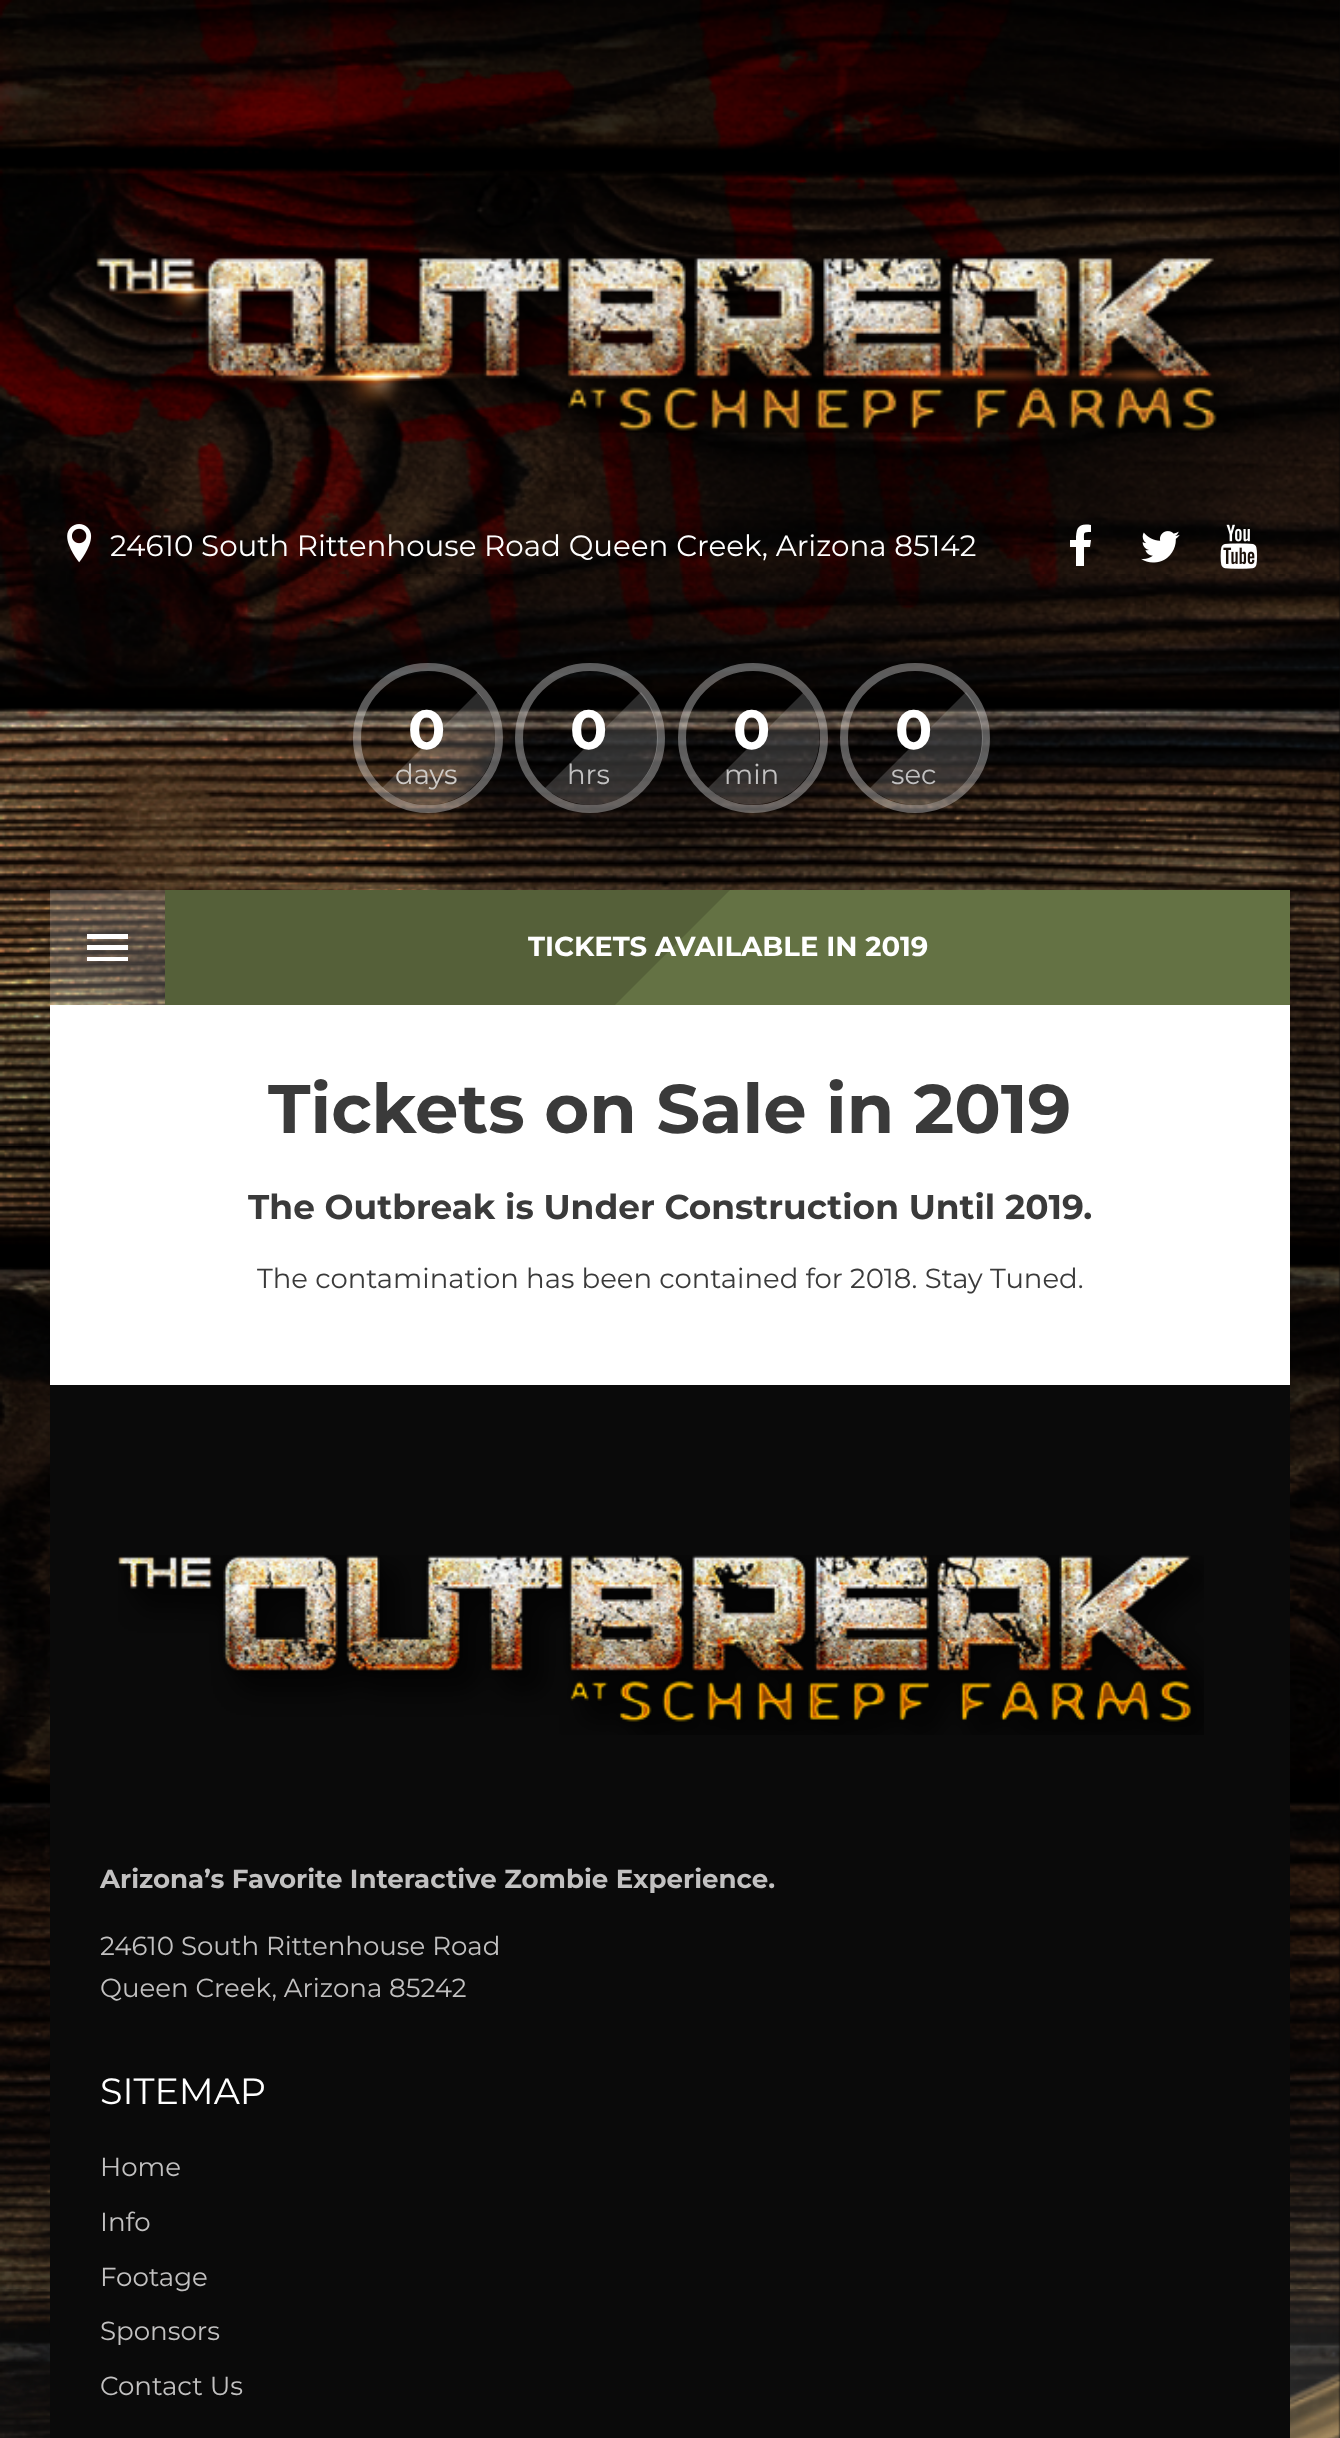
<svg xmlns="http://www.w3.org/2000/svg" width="1340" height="2438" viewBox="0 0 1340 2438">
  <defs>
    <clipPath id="clip1"><path d="M615 890h675v115H615z"/></clipPath>
  </defs>
  <rect width="100%" height="100%" fill="#0a0a0a"/>
  <image x="0" y="0" width="1340" height="2438" href="img/1.png"/>
  <image x="96" y="250" width="1158" height="183" href="img/2.png"/>
  <image x="67" y="524" width="25" height="39" href="img/3.png"/>
  <path d="M1070 547V540H1076C1076 528 1078 523 1091 525V532C1083 532 1084 532 1084 540H1091L1090 547H1084V566H1076V547Z" fill="#fff"/>
  <image x="1141" y="531" width="39" height="32" href="img/4.png"/>
  <image x="1220" y="524" width="38" height="45" href="img/5.png"/>
  <path d="M50 1005h1240v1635H50z" fill="#00000080" filter="blur(125px)"/>
  <circle cx="428" cy="738" r="71" fill="none" stroke="#ffffff59" stroke-width="8"/>
  <circle cx="590" cy="738" r="71" fill="none" stroke="#ffffff59" stroke-width="8"/>
  <circle cx="753" cy="738" r="71" fill="none" stroke="#ffffff59" stroke-width="8"/>
  <circle cx="915" cy="738" r="71" fill="none" stroke="#ffffff59" stroke-width="8"/>
  <path d="M50 890h115v115H50z" fill="#ffffff33"/>
  <path d="M87 934H128V939H87ZM87 945H128V950H87ZM87 957H128V961H87Z" fill="#fff"/>
  <path d="M165 890h565v115H165z" fill="#556039"/>
  <g clip-path="url(#clip1)">
    <path d="M615 1005L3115-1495V1005Z" fill="#647244"/>
  </g>
  <path d="M50 1005h1240v380H50z" fill="#fff"/>
  <path d="M50 1385h1240v1053H50z" fill="#0a0a0a"/>
  <image x="118" y="1555" width="1086" height="180" href="img/6.png"/>
  <text x="110" y="556" font-family="Montserrat" font-size="29.4" fill="#fff">24610 South Rittenhouse Road Queen Creek, Arizona 85142</text>
  <text x="408" y="749" font-family="Montserrat" font-size="55" font-weight="bold" fill="#fff">0</text>
  <path d="M478 692C501 719 501 760 475 785C450 811 409 811 382 788Z" fill="#ffffff2b"/>
  <text x="395" y="784" font-family="Montserrat" font-size="27.5" fill="#cecac6">days</text>
  <text x="570" y="749" font-family="Montserrat" font-size="55" font-weight="bold" fill="#fff">0</text>
  <path d="M641 692C664 719 664 760 638 785C613 811 572 811 545 788Z" fill="#ffffff2b"/>
  <text x="567" y="784" font-family="Montserrat" font-size="27.5" fill="#c2c1c1">hrs</text>
  <text x="733" y="749" font-family="Montserrat" font-size="55" font-weight="bold" fill="#fff">0</text>
  <path d="M803 693C826 719 825 760 800 785C775 810 734 811 708 788Z" fill="#ffffff2b"/>
  <text x="724" y="784" font-family="Montserrat" font-size="27.5" fill="#c2c1c1">min</text>
  <text x="895" y="749" font-family="Montserrat" font-size="55" font-weight="bold" fill="#fff">0</text>
  <path d="M966 692C989 719 989 760 963 785C938 811 897 811 870 788Z" fill="#ffffff2b"/>
  <text x="891" y="784" font-family="Montserrat" font-size="27.5" fill="#c2c1c1">sec</text>
  <text x="528" y="956" font-family="Montserrat" font-size="27.5" font-weight="bold" fill="#fff">TICKETS AVAILABLE IN 2019</text>
  <text x="268" y="1133" font-family="Montserrat" font-size="68.75" font-weight="bold" fill="#3a3a3a">Tickets on Sale in 2019</text>
  <text x="248" y="1219" font-family="Montserrat" font-size="34.4" font-weight="bold" fill="#3a3a3a">The Outbreak is Under Construction Until 2019.</text>
  <text x="257" y="1288" font-family="Montserrat" font-size="27.5" fill="#3a3a3a">The contamination has been contained for 2018. Stay Tuned.</text>
  <text x="100" y="1888" font-family="Montserrat" font-size="26.1" font-weight="bold" fill="#c2c1c1">Arizona’s Favorite Interactive Zombie Experience.</text>
  <g font-family="Montserrat" font-size="26.1" fill="#c2c1c1">
    <text x="100" y="1955">24610 South Rittenhouse Road</text>
    <text x="100" y="1997">Queen Creek, Arizona 85242</text>
  </g>
  <text x="100" y="2104" font-family="Montserrat" font-size="36.5" fill="#fff">SITEMAP</text>
  <g font-family="Montserrat" font-size="26.1" fill="#c2c1c1">
    <text x="100" y="2176">Home</text>
    <text x="100" y="2231">Info</text>
    <text x="100" y="2286">Footage</text>
    <text x="100" y="2340">Sponsors</text>
    <text x="100" y="2395">Contact Us</text>
  </g>
</svg>
